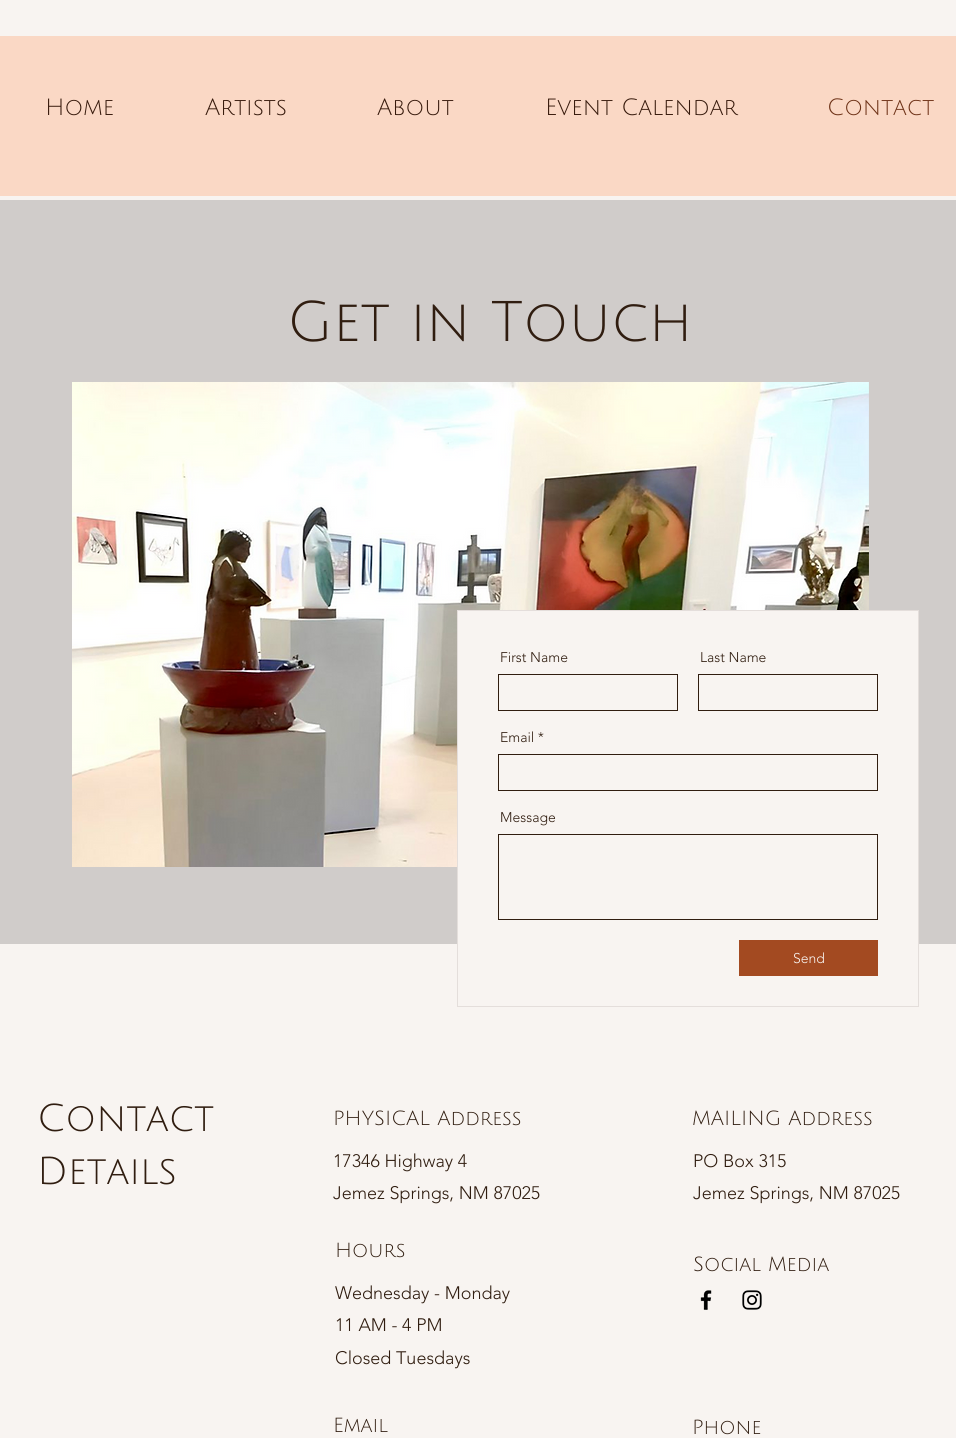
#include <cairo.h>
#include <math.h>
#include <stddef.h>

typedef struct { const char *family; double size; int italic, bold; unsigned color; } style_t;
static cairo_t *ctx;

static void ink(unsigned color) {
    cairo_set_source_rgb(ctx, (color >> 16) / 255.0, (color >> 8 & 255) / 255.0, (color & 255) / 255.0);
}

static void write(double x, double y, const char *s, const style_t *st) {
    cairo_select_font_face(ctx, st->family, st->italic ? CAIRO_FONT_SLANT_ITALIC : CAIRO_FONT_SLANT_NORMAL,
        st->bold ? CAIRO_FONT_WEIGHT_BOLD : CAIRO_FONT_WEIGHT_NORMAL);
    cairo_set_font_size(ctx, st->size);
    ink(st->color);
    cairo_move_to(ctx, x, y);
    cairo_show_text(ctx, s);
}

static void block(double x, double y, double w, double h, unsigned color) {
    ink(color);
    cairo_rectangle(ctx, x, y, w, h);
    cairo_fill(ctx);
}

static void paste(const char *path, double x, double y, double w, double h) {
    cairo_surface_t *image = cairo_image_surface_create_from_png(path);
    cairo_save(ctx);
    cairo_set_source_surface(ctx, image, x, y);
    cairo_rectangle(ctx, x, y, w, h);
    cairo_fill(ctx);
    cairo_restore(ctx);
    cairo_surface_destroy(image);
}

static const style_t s1 = {"Julius Sans One", 23, 0, 0, 0x36190b};
static const style_t s2 = {"Julius Sans One", 23, 0, 0, 0x6d3116};
static const style_t s3 = {"Julius Sans One", 56, 0, 0, 0x301d10};
static const style_t s4 = {"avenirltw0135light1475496 Light", 14, 0, 0, 0x301d10};
static const style_t s5 = {"avenirltw0135light1475496 Light", 14, 0, 0, 0xf8f4f1};
static const style_t s6 = {"Julius Sans One", 38, 0, 0, 0x301d10};
static const style_t s7 = {"Julius Sans One", 20, 0, 0, 0x301d10};
static const style_t s8 = {"avenirltw0135light1475496 Light", 18, 0, 0, 0x301d10};

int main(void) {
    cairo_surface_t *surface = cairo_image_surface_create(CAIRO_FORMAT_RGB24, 956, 1438);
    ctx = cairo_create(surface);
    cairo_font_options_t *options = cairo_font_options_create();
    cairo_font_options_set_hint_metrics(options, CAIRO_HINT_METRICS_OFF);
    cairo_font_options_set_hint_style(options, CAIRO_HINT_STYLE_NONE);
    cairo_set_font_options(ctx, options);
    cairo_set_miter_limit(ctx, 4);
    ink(0xf8f4f1);
    cairo_paint(ctx);
    block(0, 36, 956, 160, 0xfad8c5);
    write(45, 115, "Home", &s1);
    write(205, 115, "Artists", &s1);
    write(377, 115, "About", &s1);
    write(545, 115, "Event Calendar", &s1);
    write(827, 115, "Contact", &s2);
    block(0, 200, 956, 744, 0xd0ccca);
    write(287, 341, "Get in Touch", &s3);
    paste("pic1.png", 72, 382, 797, 485);
    block(458, 611, 460, 333, 0xf8f4f1);
    cairo_rectangle(ctx, 457.5, 610.5, 461, 396);
    ink(0xe4dedb);
    cairo_set_line_width(ctx, 1);
    cairo_stroke(ctx);
    write(500, 662, "First Name", &s4);
    cairo_rectangle(ctx, 498.5, 674.5, 179, 36);
    cairo_stroke(ctx);
    write(700, 662, "Last Name", &s4);
    cairo_rectangle(ctx, 698.5, 674.5, 179, 36);
    cairo_stroke(ctx);
    write(500, 742, "Email *", &s4);
    cairo_rectangle(ctx, 498.5, 754.5, 379, 36);
    cairo_stroke(ctx);
    write(500, 822, "Message", &s4);
    cairo_rectangle(ctx, 498.5, 834.5, 379, 85);
    cairo_stroke(ctx);
    block(739, 940, 139, 36, 0xa34a21);
    write(793, 963, "Send", &s5);
    write(37, 1131, "Contact", &s6);
    write(37, 1184, "Details", &s6);
    write(333, 1125, "PHYSICAL Address", &s7);
    write(692, 1125, "MAILING Address", &s7);
    write(333, 1167, "17346 Highway 4", &s8);
    write(333, 1199, "Jemez Springs, NM 87025", &s8);
    write(693, 1167, "PO Box 315", &s8);
    write(693, 1199, "Jemez Springs, NM 87025", &s8);
    write(335, 1257, "Hours", &s7);
    write(693, 1271, "Social Media", &s7);
    write(335, 1299, "Wednesday - Monday", &s8);
    write(335, 1331, "11 AM - 4 PM", &s8);
    write(335, 1364, "Closed Tuesdays", &s8);
    paste("pic2.png", 700, 1290, 12, 20);
    paste("pic3.png", 742, 1290, 20, 20);
    write(333, 1432, "Email", &s7);
    write(692, 1434, "Phone", &s7);
    cairo_surface_write_to_png(surface, "screenshot.png");
    cairo_font_options_destroy(options);
    cairo_destroy(ctx);
    cairo_surface_destroy(surface);
    return 0;
}
